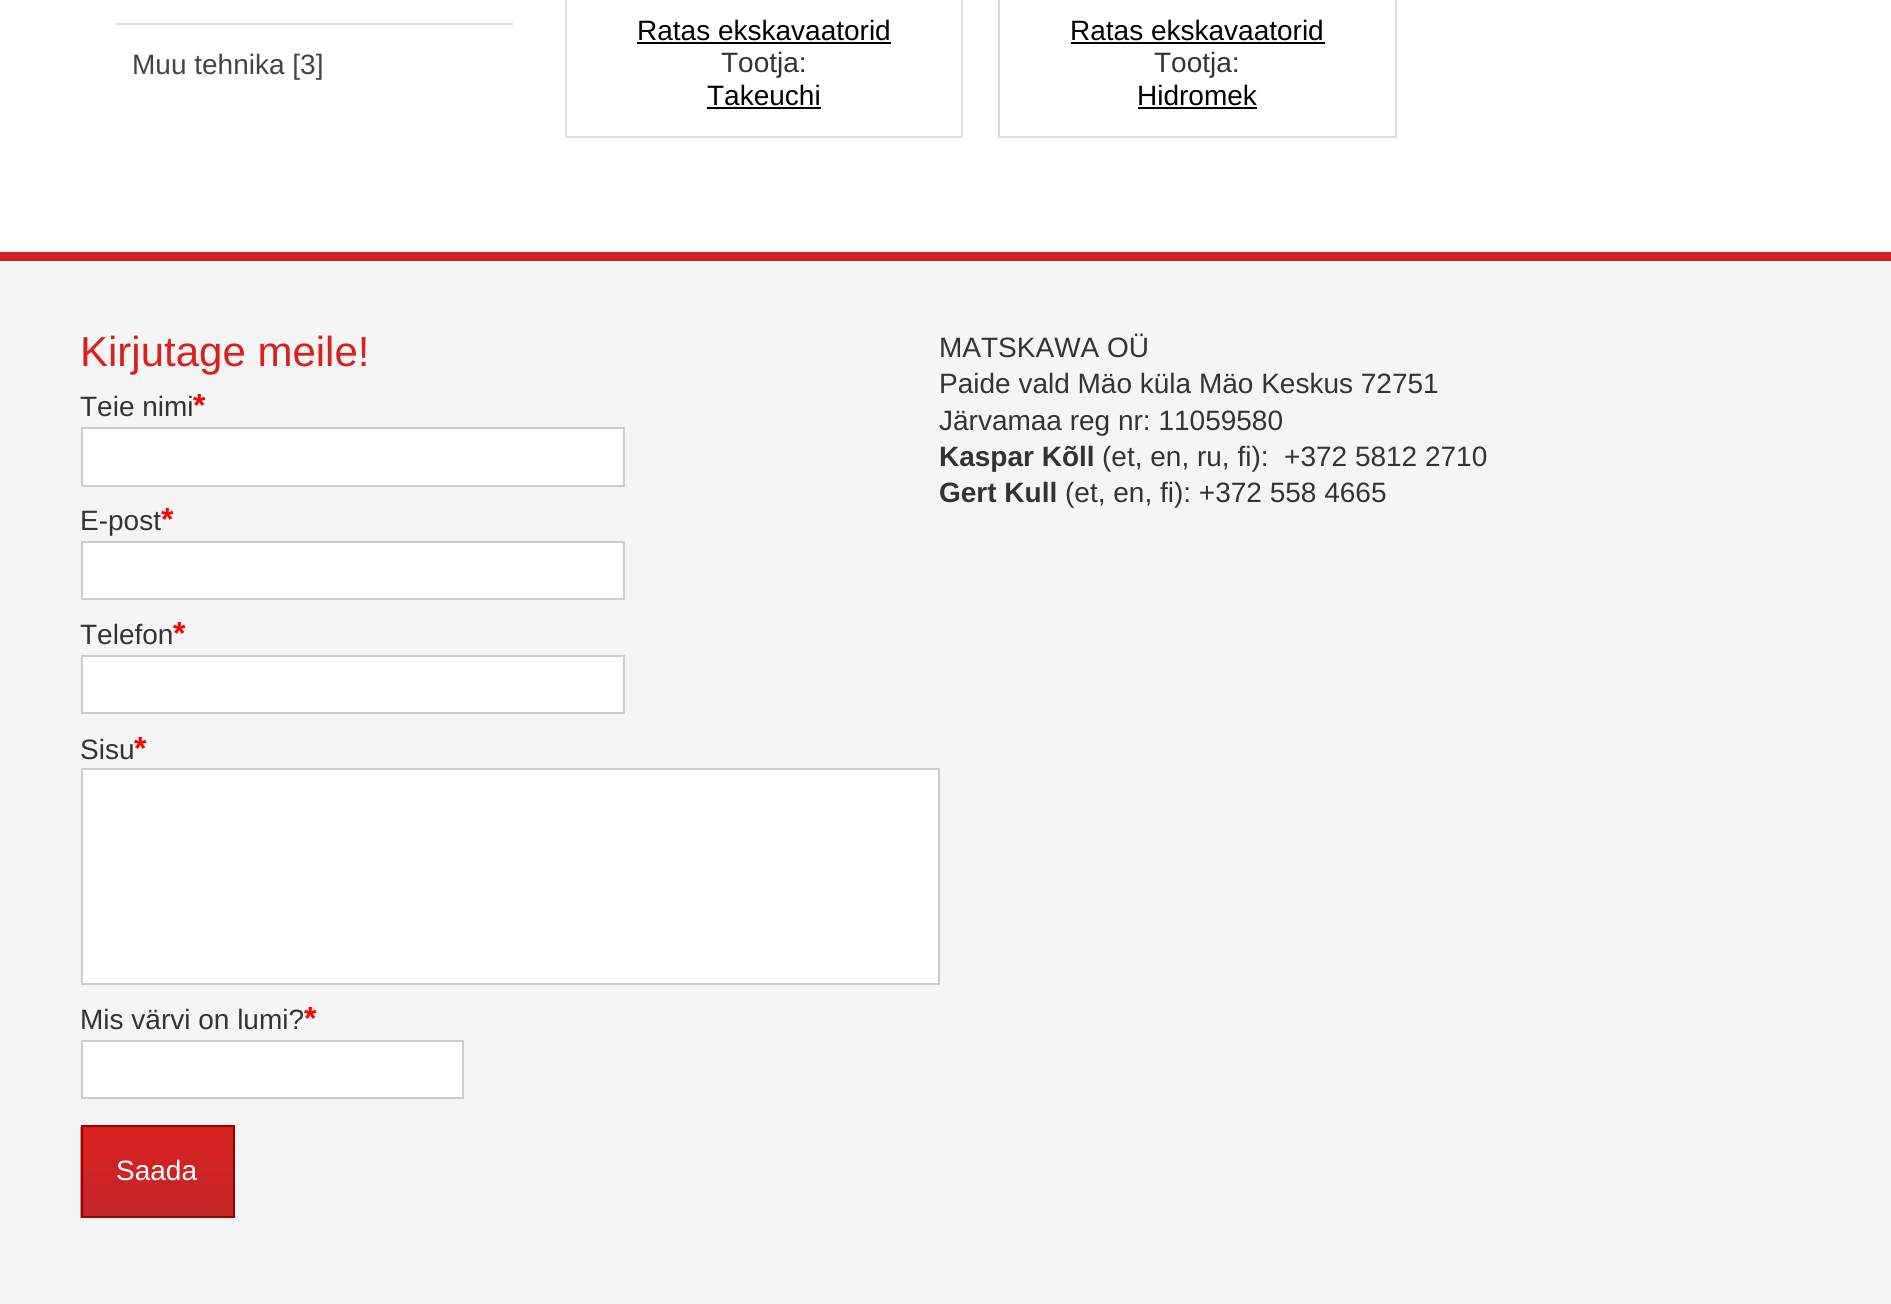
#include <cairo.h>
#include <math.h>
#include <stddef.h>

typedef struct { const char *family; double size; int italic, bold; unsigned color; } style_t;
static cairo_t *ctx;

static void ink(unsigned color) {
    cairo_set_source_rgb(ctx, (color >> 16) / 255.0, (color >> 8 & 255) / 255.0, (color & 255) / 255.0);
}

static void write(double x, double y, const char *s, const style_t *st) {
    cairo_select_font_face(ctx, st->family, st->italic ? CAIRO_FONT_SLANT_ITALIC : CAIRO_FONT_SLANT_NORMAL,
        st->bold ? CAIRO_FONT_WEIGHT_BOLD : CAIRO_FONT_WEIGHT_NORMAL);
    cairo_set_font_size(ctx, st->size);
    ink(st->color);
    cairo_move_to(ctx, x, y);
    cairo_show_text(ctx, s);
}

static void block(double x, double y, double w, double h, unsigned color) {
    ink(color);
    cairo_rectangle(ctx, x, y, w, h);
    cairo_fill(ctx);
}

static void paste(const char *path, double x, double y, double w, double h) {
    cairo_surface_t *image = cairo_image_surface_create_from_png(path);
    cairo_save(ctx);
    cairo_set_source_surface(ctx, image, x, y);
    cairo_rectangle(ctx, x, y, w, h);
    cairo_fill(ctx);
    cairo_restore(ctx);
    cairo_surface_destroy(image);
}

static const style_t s1 = {"Liberation Sans", 28, 0, 0, 0x444444};
static const style_t s2 = {"Liberation Sans", 28, 0, 0, 0x000000};
static const style_t s3 = {"Liberation Sans", 28, 0, 0, 0x333333};
static const style_t s4 = {"Liberation Sans", 42, 0, 0, 0xd9201e};
static const style_t s5 = {"Liberation Sans", 32, 0, 1, 0xff0000};
static const style_t s6 = {"Liberation Sans", 28, 0, 0, 0xffffff};
static const style_t s7 = {"Liberation Sans", 28, 0, 1, 0x333333};

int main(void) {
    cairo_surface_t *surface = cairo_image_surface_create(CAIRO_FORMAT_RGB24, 1891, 1304);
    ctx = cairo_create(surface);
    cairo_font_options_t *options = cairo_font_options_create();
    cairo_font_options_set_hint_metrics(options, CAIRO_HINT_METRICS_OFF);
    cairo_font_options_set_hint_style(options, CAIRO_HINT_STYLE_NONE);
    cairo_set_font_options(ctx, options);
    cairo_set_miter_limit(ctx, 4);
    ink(0xffffff);
    cairo_paint(ctx);
    block(116, 23, 397, 2, 0xdddddd);
    write(132, 74, "Muu tehnika [3]", &s1);
    cairo_rectangle(ctx, 566, -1, 396, 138);
    ink(0xdddddd);
    cairo_stroke(ctx);
    write(637, 40, "Ratas ekskavaatorid", &s2);
    block(637, 42, 254, 2, 0x000000);
    write(721, 72, "Tootja:", &s3);
    write(707, 105, "Takeuchi", &s2);
    block(707, 107, 114, 2, 0x000000);
    cairo_rectangle(ctx, 999, -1, 397, 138);
    ink(0xdddddd);
    cairo_stroke(ctx);
    write(1070, 40, "Ratas ekskavaatorid", &s2);
    block(1071, 42, 254, 2, 0x000000);
    write(1154, 72, "Tootja:", &s3);
    write(1137, 105, "Hidromek", &s2);
    block(1138, 107, 119, 2, 0x000000);
    block(0, 261, 1891, 1043, 0xf5f5f5);
    block(0, 252, 1891, 9, 0xd9201e);
    write(80, 366, "Kirjutage meile!", &s4);
    write(80, 416, "Teie nimi", &s3);
    write(193, 416, "*", &s5);
    ink(0xffffff);
    cairo_rectangle(ctx, 82, 428, 542, 58);
    cairo_fill_preserve(ctx);
    ink(0xcccccc);
    cairo_stroke(ctx);
    write(80, 530, "E-post", &s3);
    write(161, 530, "*", &s5);
    ink(0xffffff);
    cairo_rectangle(ctx, 82, 542, 542, 57);
    cairo_fill_preserve(ctx);
    ink(0xcccccc);
    cairo_stroke(ctx);
    write(80, 644, "Telefon", &s3);
    write(173, 644, "*", &s5);
    ink(0xffffff);
    cairo_rectangle(ctx, 82, 656, 542, 57);
    cairo_fill_preserve(ctx);
    ink(0xcccccc);
    cairo_stroke(ctx);
    write(80, 759, "Sisu", &s3);
    write(134, 759, "*", &s5);
    ink(0xffffff);
    cairo_rectangle(ctx, 82, 769, 857, 215);
    cairo_fill_preserve(ctx);
    ink(0xcccccc);
    cairo_stroke(ctx);
    write(80, 1029, "Mis värvi on lumi?", &s3);
    write(304, 1029, "*", &s5);
    ink(0xffffff);
    cairo_rectangle(ctx, 82, 1041, 381, 57);
    cairo_fill_preserve(ctx);
    ink(0xcccccc);
    cairo_stroke(ctx);
    paste("pic1.png", 80, 1127, 153, 91);
    cairo_rectangle(ctx, 82, 1126, 152, 91);
    ink(0x990000);
    cairo_stroke(ctx);
    write(116, 1180, "Saada", &s6);
    write(939, 357, "MATSKAWA OÜ", &s3);
    write(939, 393, "Paide vald Mäo küla Mäo Keskus 72751", &s3);
    write(939, 430, "Järvamaa reg nr: 11059580", &s3);
    write(939, 466, "Kaspar Kõll", &s7);
    write(1102, 466, "(et, en, ru, fi):  +372 5812 2710", &s3);
    write(939, 502, "Gert Kull", &s7);
    write(1065, 502, "(et, en, fi): +372 558 4665", &s3);
    cairo_surface_write_to_png(surface, "screenshot.png");
    cairo_font_options_destroy(options);
    cairo_destroy(ctx);
    cairo_surface_destroy(surface);
    return 0;
}
